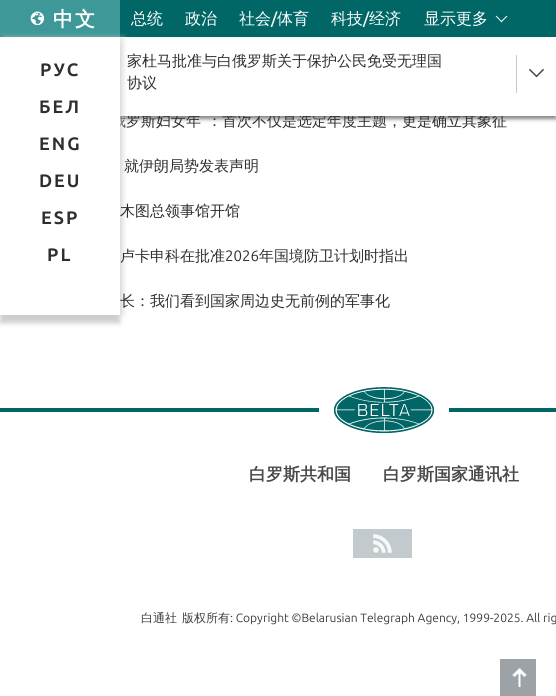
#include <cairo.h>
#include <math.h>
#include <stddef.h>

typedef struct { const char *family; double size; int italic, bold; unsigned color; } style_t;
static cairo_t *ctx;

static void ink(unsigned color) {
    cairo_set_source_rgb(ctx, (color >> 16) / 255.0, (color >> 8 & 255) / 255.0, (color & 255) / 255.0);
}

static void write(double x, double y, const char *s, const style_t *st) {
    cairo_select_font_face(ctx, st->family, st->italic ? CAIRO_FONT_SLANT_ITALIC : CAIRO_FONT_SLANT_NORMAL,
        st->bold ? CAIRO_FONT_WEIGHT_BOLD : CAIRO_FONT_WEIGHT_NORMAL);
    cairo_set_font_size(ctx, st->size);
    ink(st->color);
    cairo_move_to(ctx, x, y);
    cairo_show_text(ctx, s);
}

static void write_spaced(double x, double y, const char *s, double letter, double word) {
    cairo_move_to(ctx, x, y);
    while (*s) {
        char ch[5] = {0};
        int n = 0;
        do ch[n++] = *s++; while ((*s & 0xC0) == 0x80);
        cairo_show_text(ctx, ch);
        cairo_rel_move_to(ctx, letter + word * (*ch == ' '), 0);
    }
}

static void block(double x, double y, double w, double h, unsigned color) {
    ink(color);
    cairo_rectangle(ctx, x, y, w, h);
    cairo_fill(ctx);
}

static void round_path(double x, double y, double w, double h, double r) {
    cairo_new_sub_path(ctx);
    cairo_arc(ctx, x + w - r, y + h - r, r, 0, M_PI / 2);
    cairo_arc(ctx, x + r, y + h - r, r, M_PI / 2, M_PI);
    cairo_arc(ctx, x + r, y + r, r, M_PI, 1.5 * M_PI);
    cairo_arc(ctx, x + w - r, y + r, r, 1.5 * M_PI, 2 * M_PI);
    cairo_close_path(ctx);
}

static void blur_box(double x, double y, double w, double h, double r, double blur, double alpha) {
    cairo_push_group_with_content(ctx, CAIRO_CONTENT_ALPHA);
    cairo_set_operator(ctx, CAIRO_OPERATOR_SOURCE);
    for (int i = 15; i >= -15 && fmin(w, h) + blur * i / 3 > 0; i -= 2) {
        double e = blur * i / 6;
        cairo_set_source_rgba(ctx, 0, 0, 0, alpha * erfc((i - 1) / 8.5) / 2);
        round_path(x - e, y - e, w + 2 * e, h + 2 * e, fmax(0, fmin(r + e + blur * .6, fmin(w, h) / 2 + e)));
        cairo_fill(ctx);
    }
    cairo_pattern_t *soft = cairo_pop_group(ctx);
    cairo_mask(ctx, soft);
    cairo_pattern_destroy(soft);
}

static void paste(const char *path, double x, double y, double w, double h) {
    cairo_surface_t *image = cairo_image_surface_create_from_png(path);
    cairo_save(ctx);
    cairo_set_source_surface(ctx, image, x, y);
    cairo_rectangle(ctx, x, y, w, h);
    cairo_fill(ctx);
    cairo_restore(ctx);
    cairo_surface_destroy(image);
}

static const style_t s1 = {"WenQuanYi Zen Hei Medium", 15, 0, 0, 0x2e2e2e};
static const style_t s2 = {"WenQuanYi Zen Hei Medium", 16, 0, 0, 0xffffff};
static const style_t s3 = {"Ubuntu Medium", 16, 0, 0, 0xffffff};
static const style_t s4 = {"Ubuntu", 15, 0, 0, 0x2e2e2e};
static const style_t s5 = {"WenQuanYi Zen Hei", 17, 0, 1, 0x494949};
static const style_t s6 = {"WenQuanYi Zen Hei Medium", 12, 0, 0, 0x3c3c3c};
static const style_t s7 = {"Ubuntu", 12, 0, 0, 0x3c3c3c};

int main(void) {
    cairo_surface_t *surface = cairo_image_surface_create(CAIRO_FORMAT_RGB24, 556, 696);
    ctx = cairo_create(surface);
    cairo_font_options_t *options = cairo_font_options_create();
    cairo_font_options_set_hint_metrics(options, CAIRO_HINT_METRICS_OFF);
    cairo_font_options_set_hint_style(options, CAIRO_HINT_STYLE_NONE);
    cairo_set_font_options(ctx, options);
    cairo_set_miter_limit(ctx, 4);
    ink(0xffffff);
    cairo_paint(ctx);
    ink(0x646464);
    blur_box(0, 40, 556, 79, 0, 2, 0.8);
    block(120, 0, 436, 37, 0x006666);
    block(0, 0, 120, 37, 0x3f9898);
    paste("pic1.png", 30, 11, 14, 14);
    cairo_select_font_face(ctx, "WenQuanYi Zen Hei", CAIRO_FONT_SLANT_NORMAL, CAIRO_FONT_WEIGHT_BOLD);
    cairo_set_font_size(ctx, 20);
    ink(0xffffff);
    write_spaced(53, 26, "中文", 2, 0);
    write(111, 126, "俄罗斯妇女年", &s1);
    write(207, 126, "：首次不仅是选定年度主题，更是确立其象征", &s1);
    block(120, 37, 436, 79, 0xffffff);
    ink(0x989898);
    blur_box(0, 45, 120, 278, 0, 2.5, 0.5);
    ink(0xd4d4d4);
    blur_box(4, 37, 120, 278, 0, 2.5, 0.5);
    block(0, 37, 120, 278, 0xffffff);
    cairo_select_font_face(ctx, "Ubuntu", CAIRO_FONT_SLANT_NORMAL, CAIRO_FONT_WEIGHT_BOLD);
    cairo_set_font_size(ctx, 18);
    ink(0x2e2e2e);
    write_spaced(40, 76, "РУС", 2, 0);
    write_spaced(39, 113, "БЕЛ", 2, 0);
    write_spaced(39, 150, "ENG", 2, 0);
    write_spaced(39, 187, "DEU", 2, 0);
    write_spaced(41, 224, "ESP", 2, 0);
    write_spaced(47, 261, "PL", 2, 0);
    write(131, 24, "总统", &s2);
    write(185, 24, "政治", &s2);
    write(239, 24, "社会", &s2);
    write(271, 24, "/", &s3);
    write(277, 24, "体育", &s2);
    write(331, 24, "科技", &s2);
    write(363, 24, "/", &s3);
    write(369, 24, "经济", &s2);
    write(424, 24, "显示更多", &s2);
    paste("pic2.png", 495, 15, 13, 8);
    write(127, 66, "家杜马批准与白俄罗斯关于保护公民免受无理国", &s1);
    write(127, 88, "协议", &s1);
    paste("pic3.png", 529, 69, 15, 9);
    block(516, 55, 1, 38, 0xc8c8c8);
    write(124, 171, "就伊朗局势发表声明", &s1);
    write(120, 216, "木图总领事馆开馆", &s1);
    write(120, 261, "卢卡申科在批准", &s1);
    write(225, 261, "2026", &s4);
    write(259, 261, "年国境防卫计划时指出", &s1);
    write(120, 306, "长：我们看到国家周边史无前例的军事化", &s1);
    block(0, 408, 556, 4, 0x006666);
    block(319, 408, 130, 4, 0xffffff);
    paste("pic4.png", 334, 387, 100, 46);
    write(249, 480, "白罗斯共和国", &s5);
    write(383, 480, "白罗斯国家通讯社", &s5);
    paste("pic5.png", 353, 529, 59, 29);
    write(141, 622, "白通社", &s6);
    write(182, 622, "版权所有", &s6);
    write(230, 622, ": Copyright ©Belarusian Telegraph Agency, 1999-2025. All rig", &s7);
    paste("pic6.png", 500, 659, 36, 37);
    cairo_surface_write_to_png(surface, "screenshot.png");
    cairo_font_options_destroy(options);
    cairo_destroy(ctx);
    cairo_surface_destroy(surface);
    return 0;
}
